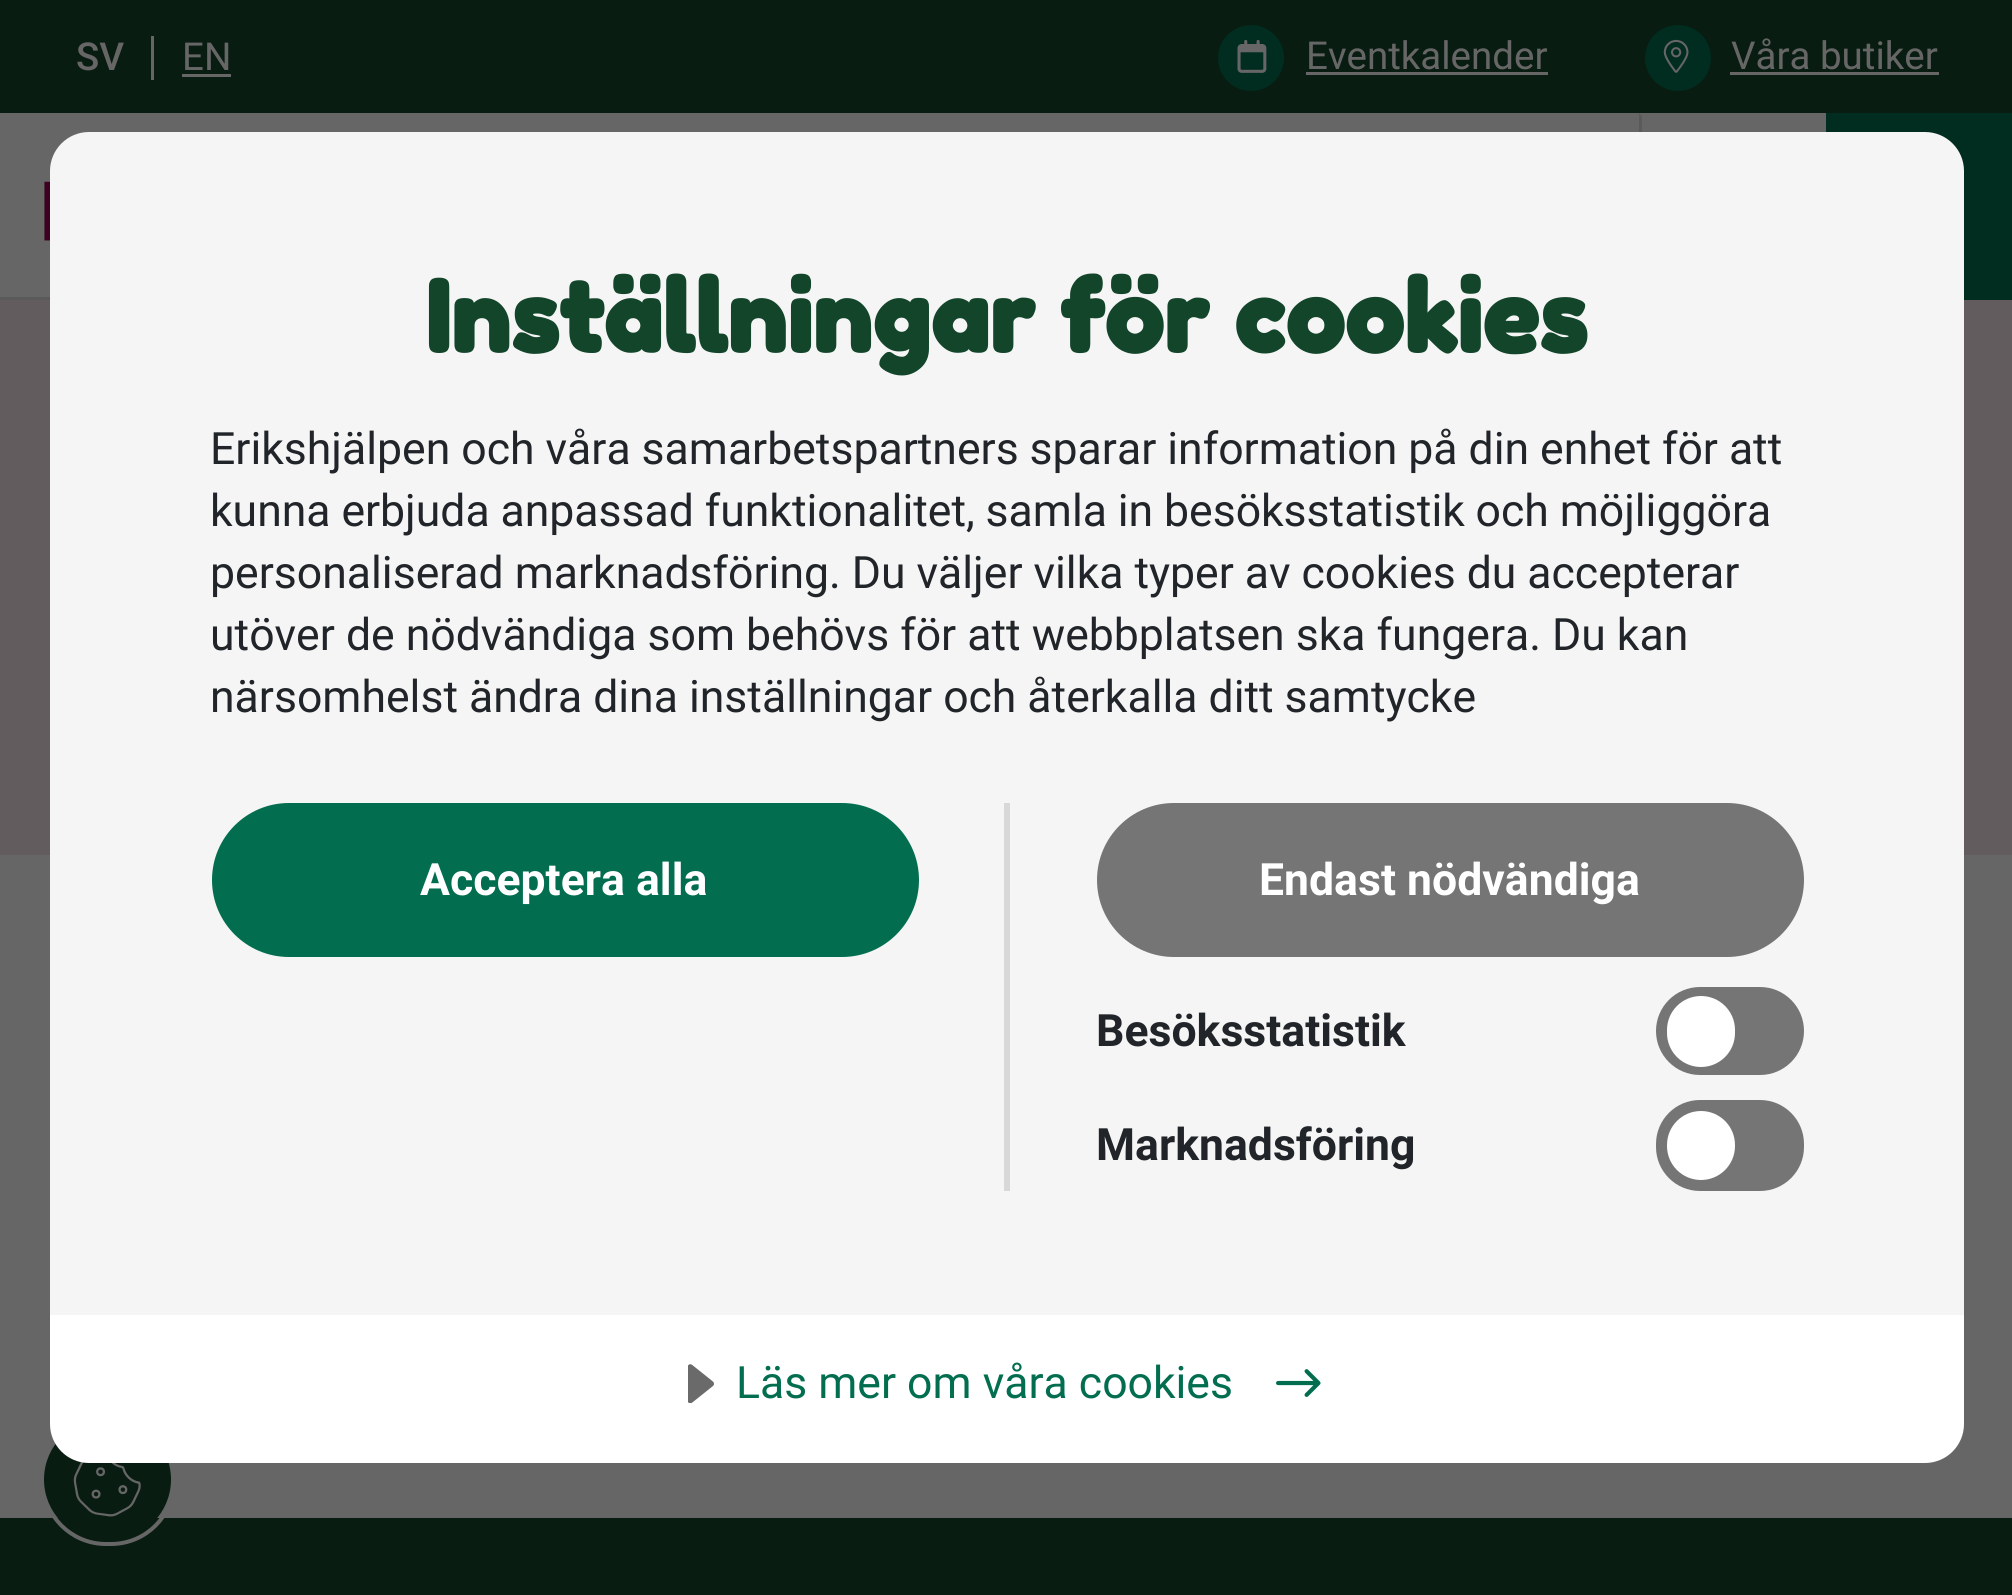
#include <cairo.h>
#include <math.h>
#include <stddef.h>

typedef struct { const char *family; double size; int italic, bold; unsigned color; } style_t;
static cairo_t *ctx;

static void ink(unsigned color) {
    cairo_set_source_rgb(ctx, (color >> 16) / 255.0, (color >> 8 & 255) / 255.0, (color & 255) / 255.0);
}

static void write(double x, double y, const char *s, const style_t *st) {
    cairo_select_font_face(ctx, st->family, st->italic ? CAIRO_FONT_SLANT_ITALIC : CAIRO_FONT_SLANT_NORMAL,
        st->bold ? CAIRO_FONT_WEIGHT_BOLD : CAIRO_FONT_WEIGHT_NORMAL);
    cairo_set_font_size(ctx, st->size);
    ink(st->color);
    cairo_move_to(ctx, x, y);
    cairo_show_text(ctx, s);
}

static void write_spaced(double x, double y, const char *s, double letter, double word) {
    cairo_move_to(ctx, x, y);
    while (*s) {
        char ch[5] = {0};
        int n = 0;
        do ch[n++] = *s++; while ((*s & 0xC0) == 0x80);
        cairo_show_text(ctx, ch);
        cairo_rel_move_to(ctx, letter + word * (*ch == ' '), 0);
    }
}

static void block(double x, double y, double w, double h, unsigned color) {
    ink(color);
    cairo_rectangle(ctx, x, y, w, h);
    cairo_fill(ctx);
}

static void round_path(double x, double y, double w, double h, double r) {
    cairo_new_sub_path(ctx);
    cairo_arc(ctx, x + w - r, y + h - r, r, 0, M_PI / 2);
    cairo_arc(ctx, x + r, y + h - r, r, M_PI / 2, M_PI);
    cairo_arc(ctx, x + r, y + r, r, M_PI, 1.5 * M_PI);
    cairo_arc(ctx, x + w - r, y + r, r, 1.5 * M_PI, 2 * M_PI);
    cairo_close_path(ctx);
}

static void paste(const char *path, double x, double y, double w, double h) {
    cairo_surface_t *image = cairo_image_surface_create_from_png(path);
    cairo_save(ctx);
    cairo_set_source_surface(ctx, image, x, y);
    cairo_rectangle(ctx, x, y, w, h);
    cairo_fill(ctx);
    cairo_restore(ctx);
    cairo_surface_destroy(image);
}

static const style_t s1 = {"Roboto Medium", 38.5, 0, 0, 0x666666};
static const style_t s2 = {"Roboto", 38.5, 0, 0, 0x666666};
static const style_t s3 = {"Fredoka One", 99, 0, 1, 0x13452b};
static const style_t s4 = {"Roboto", 44.55, 0, 0, 0x212529};
static const style_t s5 = {"Roboto", 44.55, 0, 1, 0xffffff};
static const style_t s6 = {"Roboto", 44.55, 0, 1, 0x212529};
static const style_t s7 = {"Roboto", 44.55, 0, 0, 0x026e4f};

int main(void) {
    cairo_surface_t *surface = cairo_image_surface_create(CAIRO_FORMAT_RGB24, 2012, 1595);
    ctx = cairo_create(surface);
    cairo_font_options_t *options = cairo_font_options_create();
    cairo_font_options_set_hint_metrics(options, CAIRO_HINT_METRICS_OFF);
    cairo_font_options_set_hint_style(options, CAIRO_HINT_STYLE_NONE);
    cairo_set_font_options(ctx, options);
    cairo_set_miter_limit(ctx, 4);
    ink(0x666666);
    cairo_paint(ctx);
    block(0, 0, 2012, 113, 0x081c11);
    write(76, 70, "SV", &s1);
    block(151, 36, 3, 44, 0x666666);
    write(182, 70, "EN", &s2);
    block(182, 74, 49, 3, 0x666666);
    ink(0x012c20);
    cairo_new_path(ctx);
    cairo_arc(ctx, 1251, 58, 33, 0, 2 * M_PI);
    cairo_fill(ctx);
    paste("pic1.png", 1237, 39, 30, 34);
    write(1306, 69, "Eventkalender", &s2);
    block(1306, 72, 242, 3, 0x666666);
    ink(0x012c20);
    cairo_new_path(ctx);
    cairo_arc(ctx, 1678, 58, 33, 0, 2 * M_PI);
    cairo_fill(ctx);
    paste("pic2.png", 1663, 39, 26, 34);
    write(1731, 69, "Våra butiker", &s2);
    block(1730, 72, 209, 3, 0x666666);
    block(0, 297, 50, 3, 0x5a5a5a);
    paste("pic3.png", 44, 181, 6, 60);
    cairo_new_path(ctx);
    cairo_move_to(ctx, 1639, 300);
    cairo_line_to(ctx, 1639, 113);
    cairo_line_to(ctx, 1642, 116);
    cairo_line_to(ctx, 1642, 297);
    cairo_close_path(ctx);
    cairo_fill(ctx);
    block(1826, 113, 186, 187, 0x012c20);
    block(0, 300, 2012, 555, 0x625c5f);
    ink(0xf5f5f5);
    cairo_new_path(ctx);
    cairo_move_to(ctx, 89, 132);
    cairo_line_to(ctx, 1925, 132);
    cairo_curve_to(ctx, 1946.5, 132, 1964, 149.5, 1964, 171);
    cairo_line_to(ctx, 1964, 1315);
    cairo_line_to(ctx, 50, 1315);
    cairo_line_to(ctx, 50, 171);
    cairo_curve_to(ctx, 50, 149.5, 67.5, 132, 89, 132);
    cairo_close_path(ctx);
    cairo_fill(ctx);
    write(425, 353, "Inställningar för cookies", &s3);
    cairo_select_font_face(ctx, "Roboto", CAIRO_FONT_SLANT_NORMAL, CAIRO_FONT_WEIGHT_NORMAL);
    cairo_set_font_size(ctx, 44.55);
    ink(0x212529);
    write_spaced(210, 464, "Erikshjälpen och våra samarbetspartners sparar information på din enhet för att", 0, -0.1);
    write_spaced(210, 526, "kunna erbjuda anpassad funktionalitet, samla in besöksstatistik och möjliggöra", 0, -0.25);
    write_spaced(210, 588, "personaliserad marknadsföring. Du väljer vilka typer av cookies du accepterar", 0, -0.1);
    write(210, 650, "utöver de nödvändiga som behövs för att webbplatsen ska fungera. Du kan", &s4);
    write_spaced(210, 712, "närsomhelst ändra dina inställningar och återkalla ditt samtycke", 0, -0.1);
    block(1004, 803, 6, 388, 0xd8d8d8);
    ink(0x026e4f);
    round_path(212, 803, 707, 154, 77);
    cairo_fill(ctx);
    write(420, 895, "Acceptera alla", &s5);
    ink(0x757575);
    round_path(1097, 803, 707, 154, 77);
    cairo_fill(ctx);
    write(1259, 895, "Endast nödvändiga", &s5);
    write(1096, 1046, "Besöksstatistik", &s6);
    ink(0x757575);
    round_path(1656, 987, 148, 88, 44);
    cairo_fill(ctx);
    ink(0xffffff);
    round_path(1667, 996, 68, 71, 34);
    cairo_fill(ctx);
    write(1096, 1160, "Marknadsföring", &s6);
    ink(0x757575);
    round_path(1656, 1100, 148, 91, 44);
    cairo_fill(ctx);
    ink(0xffffff);
    round_path(1667, 1111, 68, 69, 34);
    cairo_fill(ctx);
    block(0, 1518, 2012, 77, 0x081c11);
    round_path(43, 1418, 131, 126, 63);
    ink(0x666666);
    cairo_set_line_width(ctx, 4);
    cairo_stroke(ctx);
    ink(0x081c11);
    round_path(44, 1419, 127, 121, 60.5);
    cairo_fill(ctx);
    paste("pic6.png", 73, 1462, 68, 55);
    ink(0xffffff);
    cairo_new_path(ctx);
    cairo_move_to(ctx, 50, 1315);
    cairo_line_to(ctx, 1964, 1315);
    cairo_line_to(ctx, 1964, 1424);
    cairo_curve_to(ctx, 1964, 1445.5, 1946.5, 1463, 1925, 1463);
    cairo_line_to(ctx, 89, 1463);
    cairo_curve_to(ctx, 67.5, 1463, 50, 1445.5, 50, 1424);
    cairo_close_path(ctx);
    cairo_fill(ctx);
    paste("pic4.png", 688, 1364, 26, 39);
    write(736, 1398, "Läs mer om våra cookies", &s7);
    paste("pic5.png", 1276, 1369, 45, 28);
    cairo_surface_write_to_png(surface, "screenshot.png");
    cairo_font_options_destroy(options);
    cairo_destroy(ctx);
    cairo_surface_destroy(surface);
    return 0;
}
